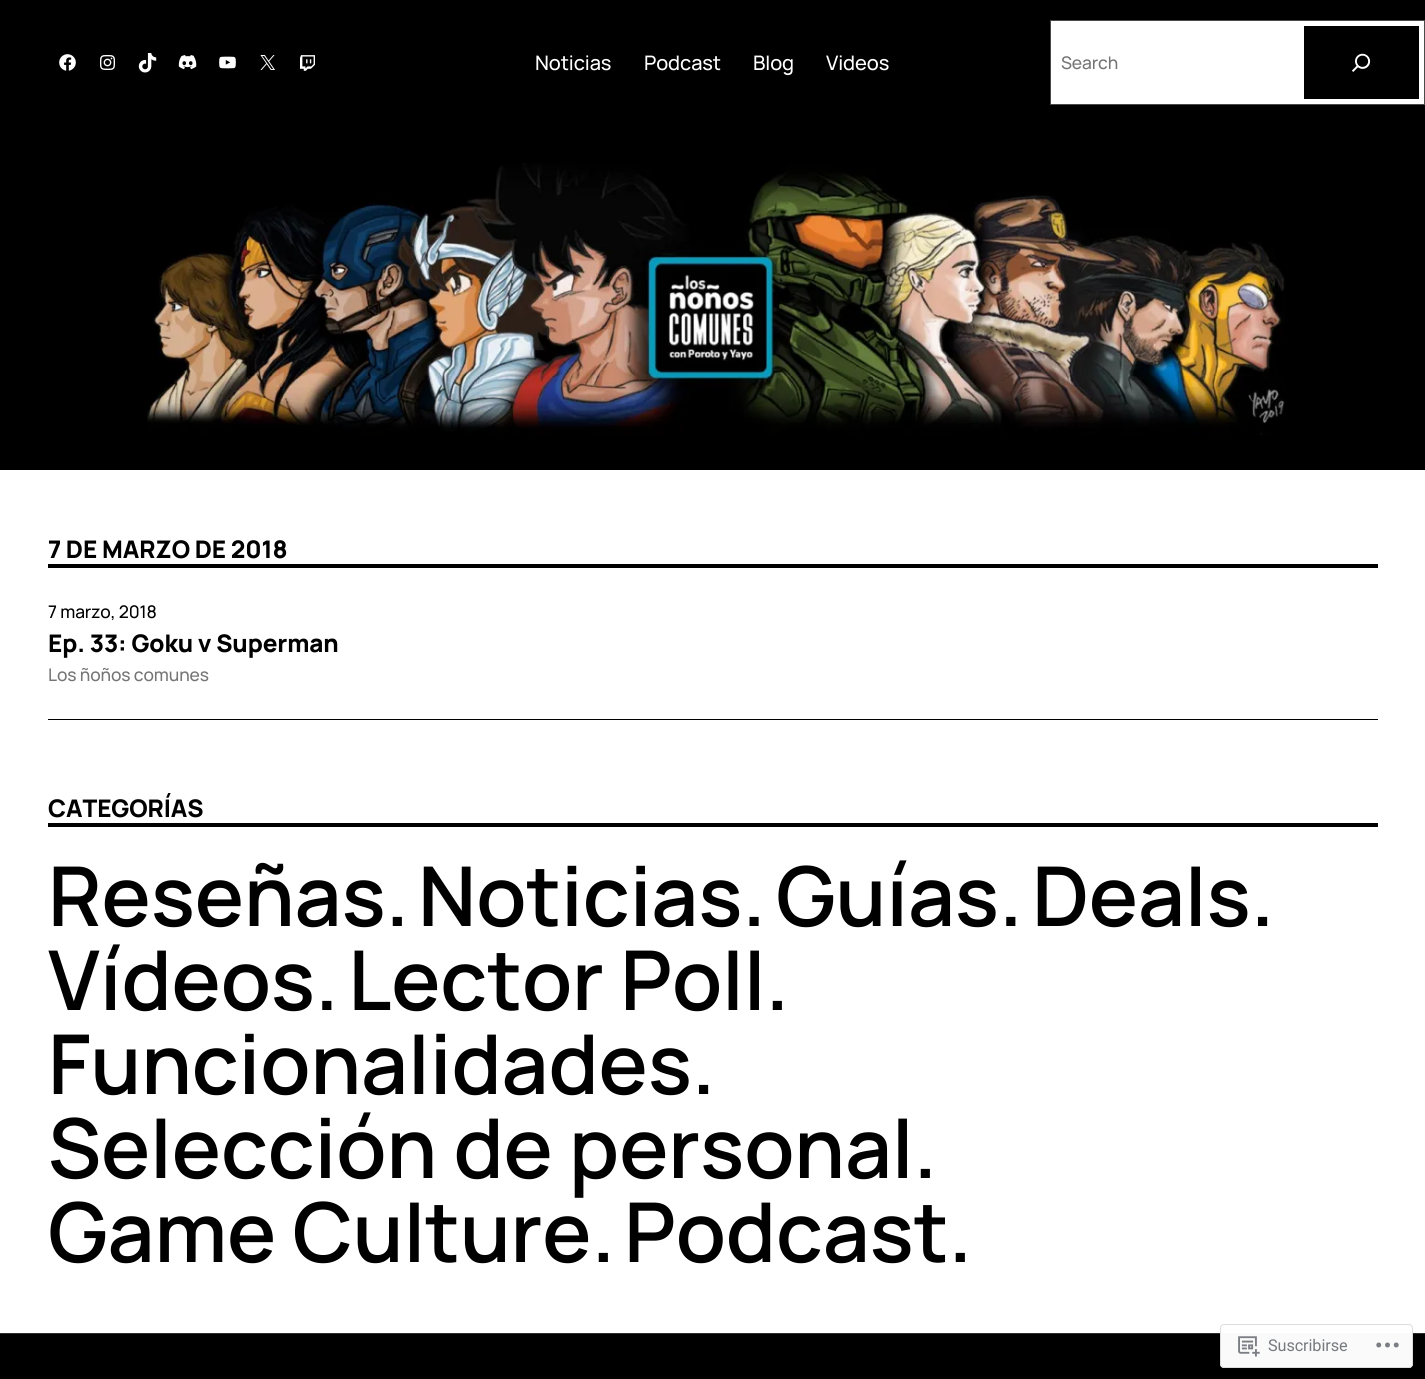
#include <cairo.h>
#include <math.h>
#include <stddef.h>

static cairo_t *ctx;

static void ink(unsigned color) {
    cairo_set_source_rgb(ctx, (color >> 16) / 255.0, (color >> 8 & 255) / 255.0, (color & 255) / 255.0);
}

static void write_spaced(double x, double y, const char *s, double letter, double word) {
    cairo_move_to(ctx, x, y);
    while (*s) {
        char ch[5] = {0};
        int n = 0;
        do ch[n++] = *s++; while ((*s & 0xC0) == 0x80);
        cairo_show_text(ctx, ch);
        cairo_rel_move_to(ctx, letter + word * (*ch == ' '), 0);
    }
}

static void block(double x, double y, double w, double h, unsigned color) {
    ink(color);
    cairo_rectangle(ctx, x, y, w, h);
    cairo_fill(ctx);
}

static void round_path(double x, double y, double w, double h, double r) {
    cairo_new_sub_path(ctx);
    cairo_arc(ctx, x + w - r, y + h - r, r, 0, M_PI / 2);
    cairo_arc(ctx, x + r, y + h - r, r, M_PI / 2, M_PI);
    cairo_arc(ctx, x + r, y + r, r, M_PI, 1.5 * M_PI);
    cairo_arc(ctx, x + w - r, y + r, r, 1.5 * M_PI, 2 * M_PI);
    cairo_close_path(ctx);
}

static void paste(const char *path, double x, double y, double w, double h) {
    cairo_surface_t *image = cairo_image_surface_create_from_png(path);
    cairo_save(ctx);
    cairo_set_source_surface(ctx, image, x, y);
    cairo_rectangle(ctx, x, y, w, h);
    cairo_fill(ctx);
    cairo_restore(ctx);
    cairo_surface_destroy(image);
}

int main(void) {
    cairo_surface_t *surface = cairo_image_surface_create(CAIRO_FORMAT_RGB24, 1425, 1379);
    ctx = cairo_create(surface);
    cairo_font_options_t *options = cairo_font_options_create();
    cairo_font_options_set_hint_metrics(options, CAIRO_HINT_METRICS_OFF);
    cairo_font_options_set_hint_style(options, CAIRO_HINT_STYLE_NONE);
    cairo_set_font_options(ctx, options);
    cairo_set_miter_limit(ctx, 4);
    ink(0xffffff);
    cairo_paint(ctx);
    block(0, 0, 1425, 470, 0x000000);
    paste("pic1.png", 59, 54, 17, 17);
    paste("pic2.png", 100, 55, 15, 15);
    paste("pic3.png", 138, 53, 19, 20);
    paste("pic4.png", 178, 55, 19, 15);
    paste("pic5.png", 219, 56, 17, 13);
    paste("pic6.png", 260, 55, 15, 15);
    paste("pic7.png", 300, 55, 15, 16);
    cairo_select_font_face(ctx, "Manrope Medium", CAIRO_FONT_SLANT_NORMAL, CAIRO_FONT_WEIGHT_NORMAL);
    cairo_set_font_size(ctx, 20);
    ink(0xffffff);
    write_spaced(535, 70, "Noticias", -0.1, 0);
    write_spaced(644, 70, "Podcast", -0.1, 0);
    write_spaced(753, 70, "Blog", -0.1, 0);
    write_spaced(826, 70, "Videos", -0.1, 0);
    cairo_rectangle(ctx, 1050.5, 20.5, 374, 84);
    cairo_fill_preserve(ctx);
    ink(0x4a4a4a);
    cairo_set_line_width(ctx, 1);
    cairo_stroke(ctx);
    cairo_set_font_size(ctx, 17.4);
    ink(0x757575);
    write_spaced(1061, 69, "Search", -0.1, 0);
    block(1304, 26, 115, 73, 0x000000);
    paste("pic8.png", 1352, 53, 19, 19);
    paste("pic9.png", 147, 163, 1138, 272);
    block(48, 564, 1330, 4, 0x000000);
    cairo_select_font_face(ctx, "Manrope ExtraBold", CAIRO_FONT_SLANT_NORMAL, CAIRO_FONT_WEIGHT_NORMAL);
    cairo_set_font_size(ctx, 24.25);
    write_spaced(48, 558, "7 DE MARZO DE 2018", -0.1, 0);
    cairo_select_font_face(ctx, "Manrope Medium", CAIRO_FONT_SLANT_NORMAL, CAIRO_FONT_WEIGHT_NORMAL);
    cairo_set_font_size(ctx, 17.4);
    write_spaced(48, 618, "7 marzo, 2018", -0.1, 0);
    cairo_select_font_face(ctx, "Manrope ExtraBold", CAIRO_FONT_SLANT_NORMAL, CAIRO_FONT_WEIGHT_NORMAL);
    cairo_set_font_size(ctx, 24.25);
    write_spaced(48, 652, "Ep. 33: Goku v Superman", -0.1, 0);
    cairo_select_font_face(ctx, "Manrope Medium", CAIRO_FONT_SLANT_NORMAL, CAIRO_FONT_WEIGHT_NORMAL);
    cairo_set_font_size(ctx, 17.4);
    ink(0x757575);
    write_spaced(48, 681, "Los ñoños comunes", -0.1, 0);
    block(48, 719, 1330, 1, 0x000000);
    block(48, 823, 1330, 4, 0x000000);
    cairo_select_font_face(ctx, "Manrope ExtraBold", CAIRO_FONT_SLANT_NORMAL, CAIRO_FONT_WEIGHT_NORMAL);
    cairo_set_font_size(ctx, 24.25);
    write_spaced(48, 817, "CATEGORÍAS", -0.1, 0);
    cairo_select_font_face(ctx, "Manrope SemiBold", CAIRO_FONT_SLANT_NORMAL, CAIRO_FONT_WEIGHT_NORMAL);
    cairo_set_font_size(ctx, 82.5);
    write_spaced(48, 926, "Reseñas.", -0.1, 0);
    write_spaced(418, 926, "Noticias.", -0.1, 0);
    write_spaced(776, 926, "Guías.", -0.1, 0);
    write_spaced(1032, 926, "Deals.", -0.1, 0);
    write_spaced(48, 1010, "Vídeos.", -0.1, 0);
    write_spaced(348, 1010, "Lector Poll.", -0.1, 0);
    write_spaced(48, 1094, "Funcionalidades.", -0.1, 0);
    write_spaced(48, 1178, "Selección de personal.", -0.1, 0);
    write_spaced(48, 1262, "Game Culture.", -0.1, 0);
    write_spaced(624, 1262, "Podcast.", -0.1, 0);
    block(0, 1334, 1425, 45, 0x000000);
    block(0, 1333, 1425, 1, 0x2e2e2e);
    cairo_set_source_rgba(ctx, 1, 1, 1, 0.98);
    round_path(1220, 1324, 193, 44, 4);
    cairo_fill(ctx);
    round_path(1220.5, 1324.5, 192, 43, 3.5);
    cairo_set_source_rgba(ctx, 0.863, 0.863, 0.871, 0.98);
    cairo_stroke(ctx);
    paste("pic10.png", 1238, 1336, 22, 21);
    cairo_select_font_face(ctx, "Roboto", CAIRO_FONT_SLANT_NORMAL, CAIRO_FONT_WEIGHT_NORMAL);
    cairo_set_font_size(ctx, 16.25);
    ink(0x767a7f);
    write_spaced(1268, 1351, "Suscribirse", -0.1, 0);
    paste("pic11.png", 1376, 1342, 23, 6);
    cairo_surface_write_to_png(surface, "screenshot.png");
    cairo_font_options_destroy(options);
    cairo_destroy(ctx);
    cairo_surface_destroy(surface);
    return 0;
}
